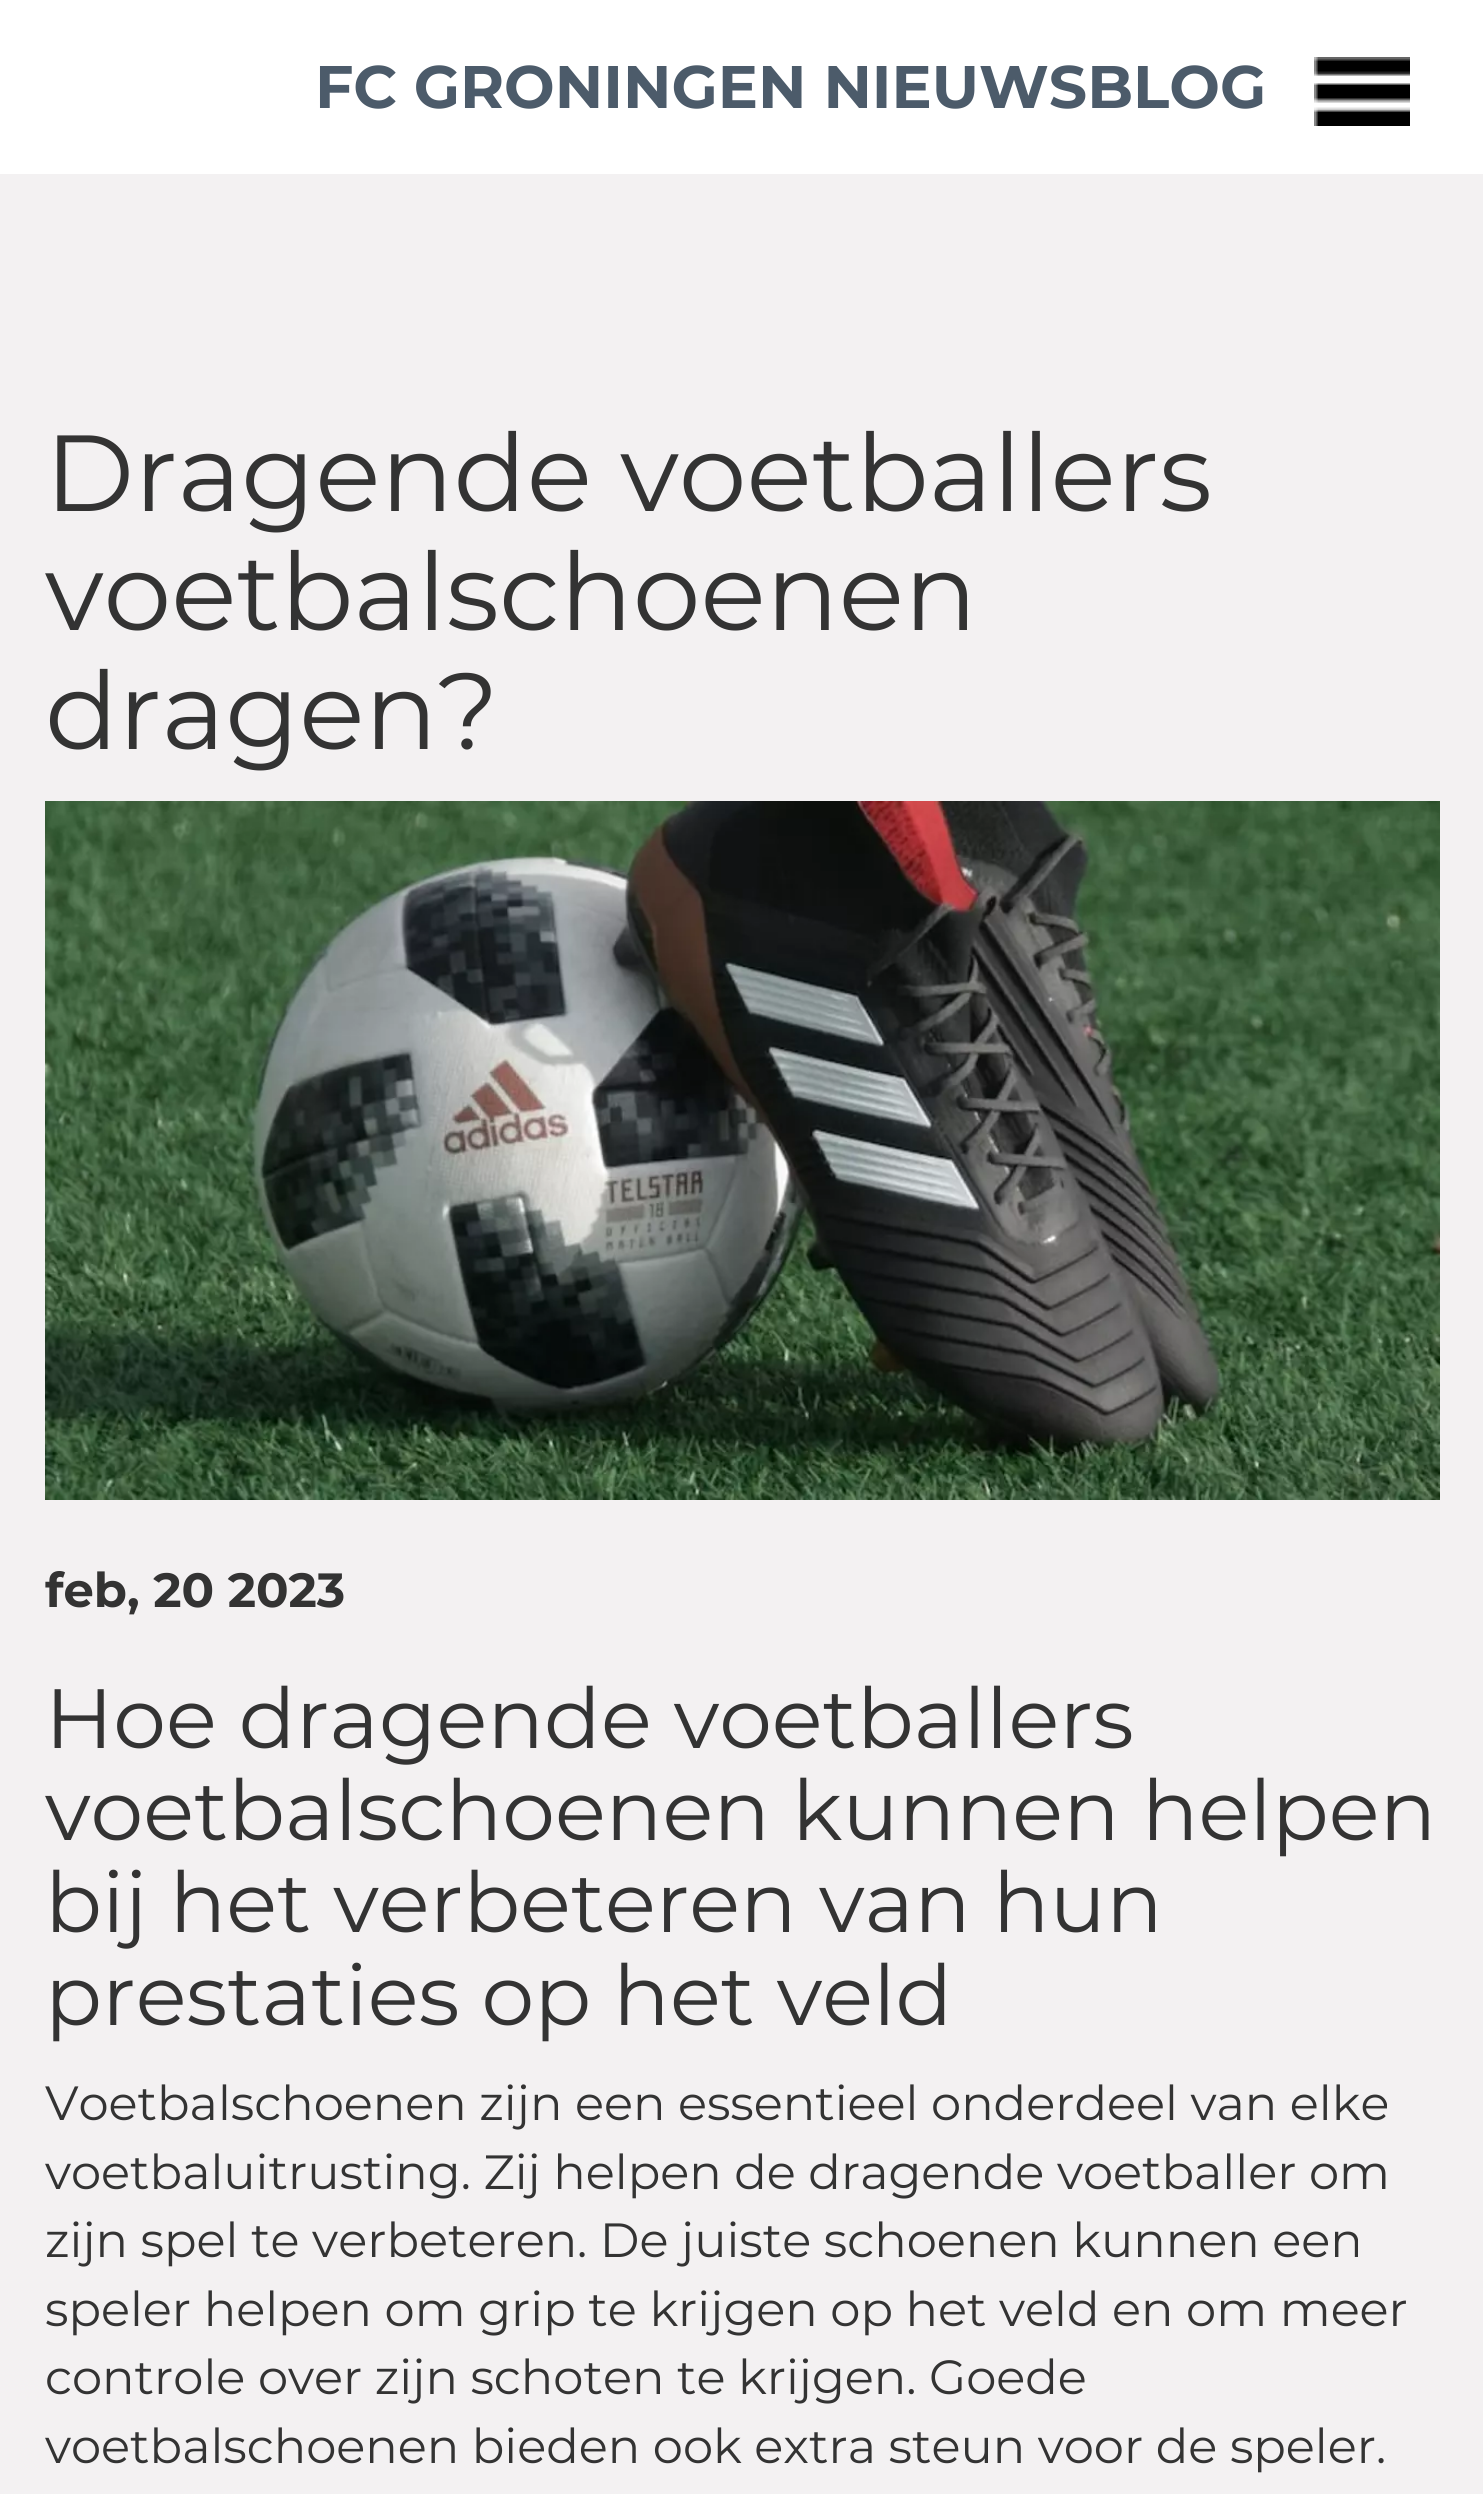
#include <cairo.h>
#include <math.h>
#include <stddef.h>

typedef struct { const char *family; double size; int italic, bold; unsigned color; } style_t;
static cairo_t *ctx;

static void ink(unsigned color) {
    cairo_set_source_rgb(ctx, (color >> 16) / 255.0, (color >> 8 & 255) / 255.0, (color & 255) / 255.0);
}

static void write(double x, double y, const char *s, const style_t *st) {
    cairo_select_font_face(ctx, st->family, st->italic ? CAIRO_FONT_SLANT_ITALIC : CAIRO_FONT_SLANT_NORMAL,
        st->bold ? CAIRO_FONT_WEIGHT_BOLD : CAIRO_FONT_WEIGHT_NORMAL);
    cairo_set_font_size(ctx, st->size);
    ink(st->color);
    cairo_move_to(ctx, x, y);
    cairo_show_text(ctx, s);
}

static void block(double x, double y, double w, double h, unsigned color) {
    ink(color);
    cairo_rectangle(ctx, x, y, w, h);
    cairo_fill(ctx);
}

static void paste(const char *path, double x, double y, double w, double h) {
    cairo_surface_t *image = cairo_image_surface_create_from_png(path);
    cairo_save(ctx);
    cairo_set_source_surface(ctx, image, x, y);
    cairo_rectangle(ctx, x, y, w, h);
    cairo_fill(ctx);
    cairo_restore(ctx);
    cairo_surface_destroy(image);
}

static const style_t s1 = {"Montserrat", 60, 0, 1, 0x4c5b6a};
static const style_t s2 = {"Montserrat", 108, 0, 0, 0x333333};
static const style_t s3 = {"Montserrat", 48, 0, 1, 0x333333};
static const style_t s4 = {"Montserrat", 84, 0, 0, 0x333333};
static const style_t s5 = {"Montserrat", 48, 0, 0, 0x333333};

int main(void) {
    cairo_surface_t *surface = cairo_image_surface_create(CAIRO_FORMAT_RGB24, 1483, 2494);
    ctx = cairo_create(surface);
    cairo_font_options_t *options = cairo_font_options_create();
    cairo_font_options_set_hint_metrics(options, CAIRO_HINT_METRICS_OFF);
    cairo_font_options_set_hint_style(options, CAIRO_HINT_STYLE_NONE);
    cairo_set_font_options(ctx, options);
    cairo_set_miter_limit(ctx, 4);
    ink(0xffffff);
    cairo_paint(ctx);
    write(315, 108, "FC GRONINGEN NIEUWSBLOG", &s1);
    paste("pic1.png", 1314, 57, 96, 69);
    block(0, 174, 1483, 2320, 0xf3f1f2);
    write(45, 511, "Dragende voetballers", &s2);
    write(45, 630, "voetbalschoenen", &s2);
    write(45, 749, "dragen?", &s2);
    paste("pic2.png", 45, 801, 1395, 699);
    write(45, 1607, "feb, 20 2023", &s3);
    write(45, 1748, "Hoe dragende voetballers", &s4);
    write(45, 1840, "voetbalschoenen kunnen helpen", &s4);
    write(45, 1932, "bij het verbeteren van hun", &s4);
    write(45, 2025, "prestaties op het veld", &s4);
    write(45, 2120, "Voetbalschoenen zijn een essentieel onderdeel van elke", &s5);
    write(45, 2189, "voetbaluitrusting. Zij helpen de dragende voetballer om", &s5);
    write(45, 2257, "zijn spel te verbeteren. De juiste schoenen kunnen een", &s5);
    write(45, 2326, "speler helpen om grip te krijgen op het veld en om meer", &s5);
    write(45, 2394, "controle over zijn schoten te krijgen. Goede", &s5);
    write(45, 2463, "voetbalschoenen bieden ook extra steun voor de speler.", &s5);
    cairo_surface_write_to_png(surface, "screenshot.png");
    cairo_font_options_destroy(options);
    cairo_destroy(ctx);
    cairo_surface_destroy(surface);
    return 0;
}
